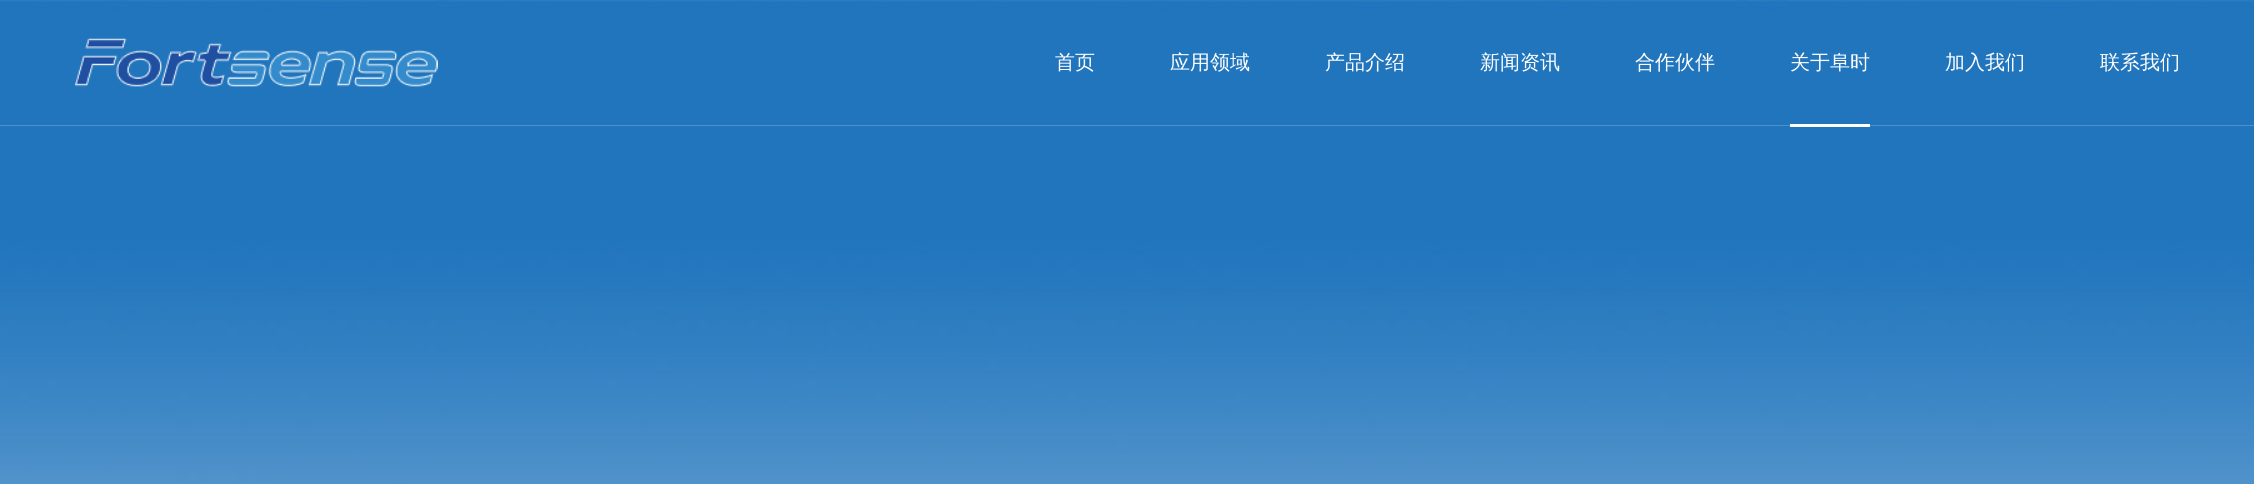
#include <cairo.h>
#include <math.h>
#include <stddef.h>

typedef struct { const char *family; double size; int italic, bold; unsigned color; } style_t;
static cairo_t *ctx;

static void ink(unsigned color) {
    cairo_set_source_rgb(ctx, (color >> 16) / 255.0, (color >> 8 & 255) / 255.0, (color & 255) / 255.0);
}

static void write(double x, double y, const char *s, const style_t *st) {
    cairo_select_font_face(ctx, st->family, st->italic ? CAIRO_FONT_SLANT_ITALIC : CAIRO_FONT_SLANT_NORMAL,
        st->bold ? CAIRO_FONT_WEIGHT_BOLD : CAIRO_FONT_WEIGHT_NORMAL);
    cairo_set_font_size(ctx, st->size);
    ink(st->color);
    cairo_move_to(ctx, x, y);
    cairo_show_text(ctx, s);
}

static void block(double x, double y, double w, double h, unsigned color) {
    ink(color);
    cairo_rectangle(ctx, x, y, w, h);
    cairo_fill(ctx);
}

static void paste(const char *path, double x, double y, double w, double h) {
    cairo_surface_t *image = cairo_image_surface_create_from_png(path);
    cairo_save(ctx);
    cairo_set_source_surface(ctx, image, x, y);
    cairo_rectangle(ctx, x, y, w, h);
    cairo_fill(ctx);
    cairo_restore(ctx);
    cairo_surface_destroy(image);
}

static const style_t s1 = {"WenQuanYi Zen Hei Medium", 20, 0, 0, 0xffffff};

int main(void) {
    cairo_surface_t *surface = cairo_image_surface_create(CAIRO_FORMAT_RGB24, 2254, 484);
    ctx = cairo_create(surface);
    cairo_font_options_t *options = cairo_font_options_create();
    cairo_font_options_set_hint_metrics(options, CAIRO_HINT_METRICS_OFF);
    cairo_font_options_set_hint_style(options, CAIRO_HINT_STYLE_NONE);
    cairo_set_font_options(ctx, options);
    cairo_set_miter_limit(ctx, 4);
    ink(0xffffff);
    cairo_paint(ctx);
    paste("pic1.png", 0, 0, 2254, 484);
    block(0, 125, 2254, 1, 0x4d91ca);
    paste("pic2.png", 75, 38, 363, 49);
    write(1055, 69, "首页", &s1);
    write(1170, 69, "应用领域", &s1);
    write(1325, 69, "产品介绍", &s1);
    write(1480, 69, "新闻资讯", &s1);
    write(1635, 69, "合作伙伴", &s1);
    write(1790, 69, "关于阜时", &s1);
    block(1790, 124, 80, 3, 0xffffff);
    write(1945, 69, "加入我们", &s1);
    write(2100, 69, "联系我们", &s1);
    cairo_surface_write_to_png(surface, "screenshot.png");
    cairo_font_options_destroy(options);
    cairo_destroy(ctx);
    cairo_surface_destroy(surface);
    return 0;
}
